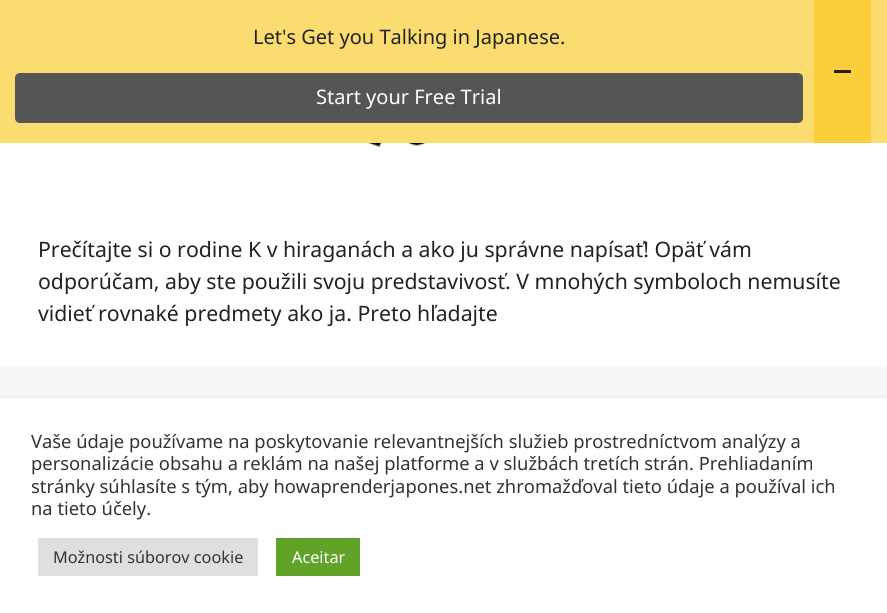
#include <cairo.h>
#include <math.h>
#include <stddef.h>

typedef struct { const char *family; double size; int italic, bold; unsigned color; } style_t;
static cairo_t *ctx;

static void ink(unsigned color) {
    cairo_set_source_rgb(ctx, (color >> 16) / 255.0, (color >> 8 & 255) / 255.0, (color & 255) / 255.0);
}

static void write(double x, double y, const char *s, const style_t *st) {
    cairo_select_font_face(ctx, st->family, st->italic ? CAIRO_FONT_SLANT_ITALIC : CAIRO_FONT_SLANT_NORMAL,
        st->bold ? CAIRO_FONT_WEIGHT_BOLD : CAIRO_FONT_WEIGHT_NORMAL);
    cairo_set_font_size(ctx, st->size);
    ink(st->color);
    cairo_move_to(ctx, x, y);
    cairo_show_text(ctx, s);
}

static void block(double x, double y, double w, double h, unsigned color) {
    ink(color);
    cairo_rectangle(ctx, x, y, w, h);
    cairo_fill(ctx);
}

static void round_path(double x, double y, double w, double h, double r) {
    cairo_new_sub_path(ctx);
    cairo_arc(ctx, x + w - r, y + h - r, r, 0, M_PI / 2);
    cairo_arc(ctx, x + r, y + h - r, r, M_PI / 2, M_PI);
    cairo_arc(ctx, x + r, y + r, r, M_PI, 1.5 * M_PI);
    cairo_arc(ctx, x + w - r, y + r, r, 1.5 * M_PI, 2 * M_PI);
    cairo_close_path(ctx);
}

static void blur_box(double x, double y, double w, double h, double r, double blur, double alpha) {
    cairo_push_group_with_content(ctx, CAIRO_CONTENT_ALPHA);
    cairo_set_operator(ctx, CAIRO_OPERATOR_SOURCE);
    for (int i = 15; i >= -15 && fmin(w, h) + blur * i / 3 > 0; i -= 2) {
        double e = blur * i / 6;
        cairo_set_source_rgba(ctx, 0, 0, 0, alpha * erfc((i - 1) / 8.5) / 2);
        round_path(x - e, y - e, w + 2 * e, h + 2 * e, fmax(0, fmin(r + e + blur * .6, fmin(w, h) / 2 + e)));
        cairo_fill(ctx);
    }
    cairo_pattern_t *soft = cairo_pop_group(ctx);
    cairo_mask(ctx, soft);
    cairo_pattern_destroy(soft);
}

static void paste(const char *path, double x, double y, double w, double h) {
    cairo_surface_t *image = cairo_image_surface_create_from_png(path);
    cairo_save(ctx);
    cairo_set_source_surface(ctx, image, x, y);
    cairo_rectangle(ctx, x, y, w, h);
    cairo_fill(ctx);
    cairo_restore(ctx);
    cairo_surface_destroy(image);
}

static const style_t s1 = {"Noto Sans", 20, 0, 0, 0x222222};
static const style_t s2 = {"Noto Sans", 20, 0, 0, 0xffffff};
static const style_t s3 = {"Noto Sans", 21.25, 0, 0, 0x222222};
static const style_t s4 = {"Noto Sans", 18.35, 0, 0, 0x333333};
static const style_t s5 = {"Noto Sans", 16.25, 0, 0, 0x333333};
static const style_t s6 = {"Noto Sans", 16.25, 0, 0, 0xffffff};

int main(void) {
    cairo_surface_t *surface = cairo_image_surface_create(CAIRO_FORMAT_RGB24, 887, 613);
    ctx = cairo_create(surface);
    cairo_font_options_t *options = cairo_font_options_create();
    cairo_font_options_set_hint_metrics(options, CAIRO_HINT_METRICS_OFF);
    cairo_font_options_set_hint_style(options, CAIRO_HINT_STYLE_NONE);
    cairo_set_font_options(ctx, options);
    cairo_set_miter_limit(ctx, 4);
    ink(0xf7f8f9);
    cairo_paint(ctx);
    block(0, 0, 887, 143, 0xfbdc70);
    write(253, 44, "Let's Get you Talking in Japanese.", &s1);
    ink(0x555555);
    round_path(15, 73, 788, 50, 5);
    cairo_fill(ctx);
    write(316, 104, "Start your Free Trial", &s2);
    block(814, 0, 57, 143, 0xfacf3b);
    block(834, 70, 17, 3, 0x222222);
    block(0, 143, 887, 223, 0xffffff);
    paste("pic1.png", 366, 143, 117, 5);
    write(38, 257, "Prečítajte si o rodine K v hiraganách a ako ju správne napísať! Opäť vám", &s3);
    write(38, 289, "odporúčam, aby ste použili svoju predstavivosť. V mnohých symboloch nemusíte", &s3);
    write(38, 321, "vidieť rovnaké predmety ako ja. Preto hľadajte", &s3);
    block(0, 391, 887, 7, 0xffffff);
    ink(0xacabab);
    blur_box(0, 396, 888, 217, 0, 6, 0.3);
    block(0, 398, 887, 215, 0xffffff);
    write(31, 448, "Vaše údaje používame na poskytovanie relevantnejších služieb prostredníctvom analýzy a", &s4);
    write(31, 470, "personalizácie obsahu a reklám na našej platforme a v službách tretích strán. Prehliadaním", &s4);
    write(31, 493, "stránky súhlasíte s tým, aby howaprenderjapones.net zhromažďoval tieto údaje a používal ich", &s4);
    write(31, 515, "na tieto účely.", &s4);
    block(38, 538, 220, 38, 0xdedfe0);
    write(53, 563, "Možnosti súborov cookie", &s5);
    block(276, 538, 84, 38, 0x61a229);
    write(292, 563, "Aceitar", &s6);
    cairo_surface_write_to_png(surface, "screenshot.png");
    cairo_font_options_destroy(options);
    cairo_destroy(ctx);
    cairo_surface_destroy(surface);
    return 0;
}
